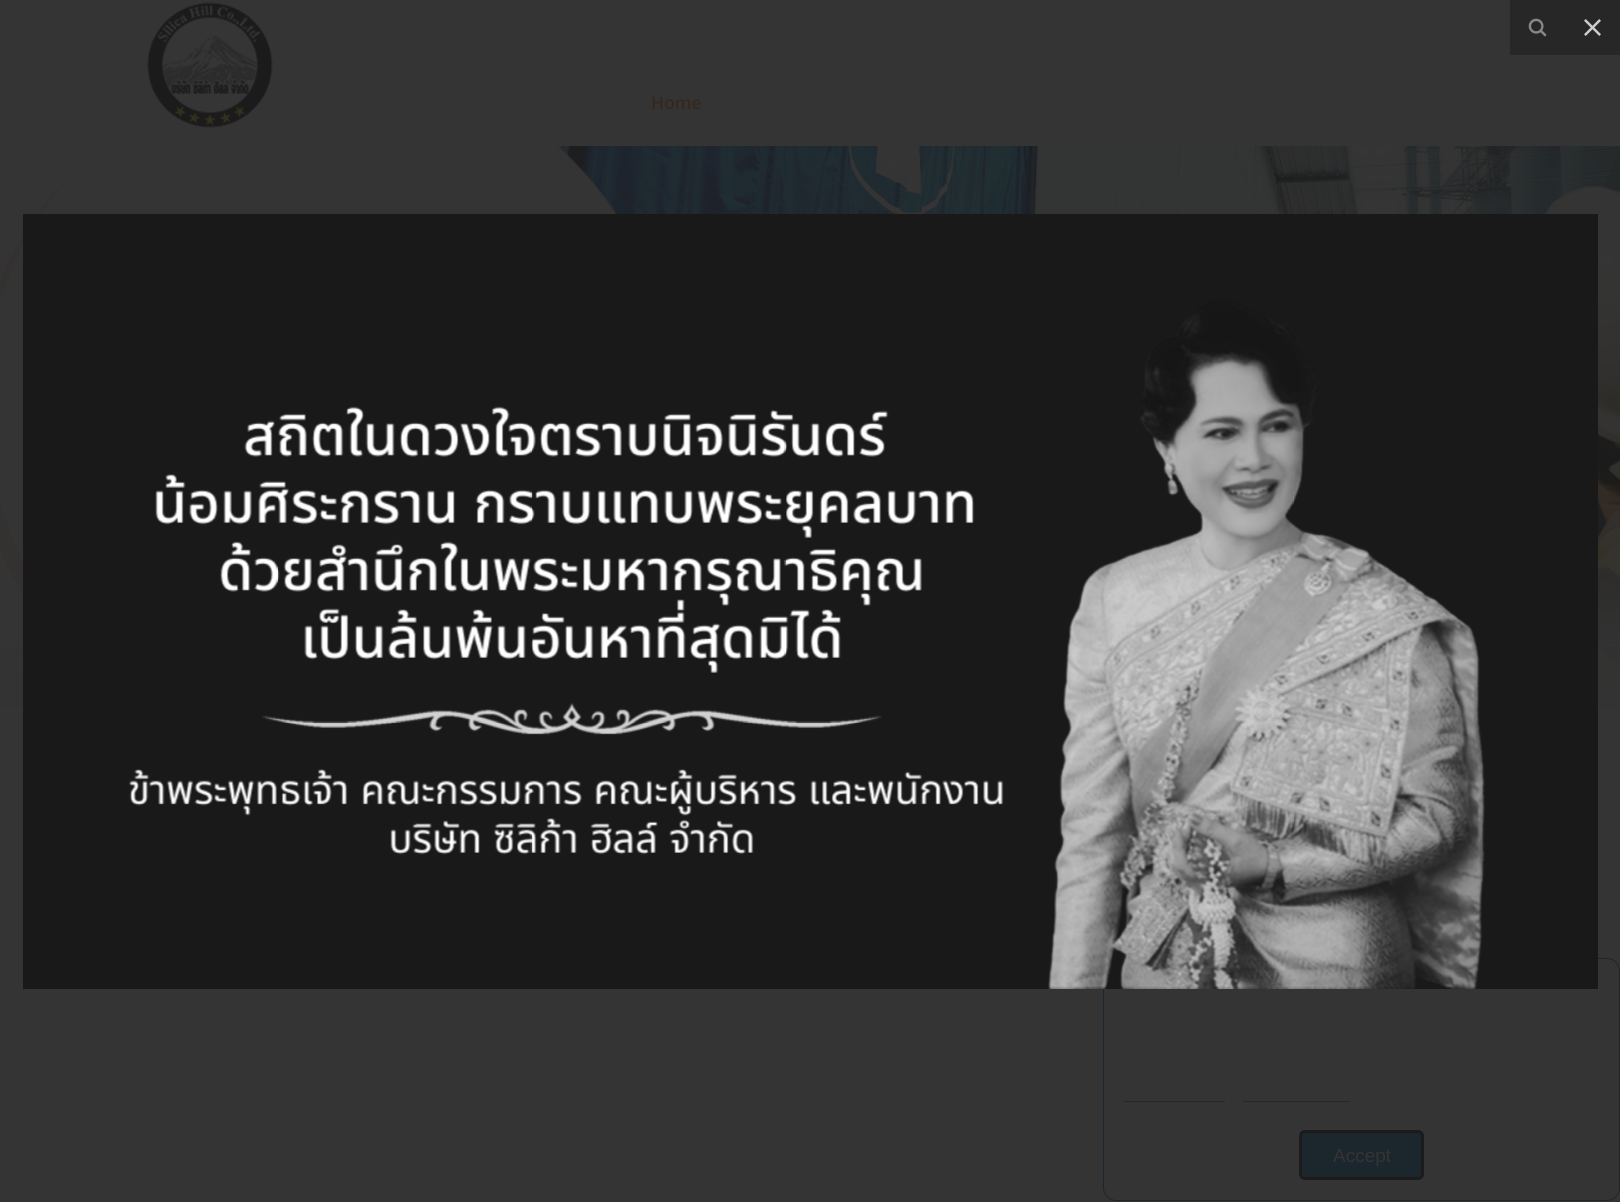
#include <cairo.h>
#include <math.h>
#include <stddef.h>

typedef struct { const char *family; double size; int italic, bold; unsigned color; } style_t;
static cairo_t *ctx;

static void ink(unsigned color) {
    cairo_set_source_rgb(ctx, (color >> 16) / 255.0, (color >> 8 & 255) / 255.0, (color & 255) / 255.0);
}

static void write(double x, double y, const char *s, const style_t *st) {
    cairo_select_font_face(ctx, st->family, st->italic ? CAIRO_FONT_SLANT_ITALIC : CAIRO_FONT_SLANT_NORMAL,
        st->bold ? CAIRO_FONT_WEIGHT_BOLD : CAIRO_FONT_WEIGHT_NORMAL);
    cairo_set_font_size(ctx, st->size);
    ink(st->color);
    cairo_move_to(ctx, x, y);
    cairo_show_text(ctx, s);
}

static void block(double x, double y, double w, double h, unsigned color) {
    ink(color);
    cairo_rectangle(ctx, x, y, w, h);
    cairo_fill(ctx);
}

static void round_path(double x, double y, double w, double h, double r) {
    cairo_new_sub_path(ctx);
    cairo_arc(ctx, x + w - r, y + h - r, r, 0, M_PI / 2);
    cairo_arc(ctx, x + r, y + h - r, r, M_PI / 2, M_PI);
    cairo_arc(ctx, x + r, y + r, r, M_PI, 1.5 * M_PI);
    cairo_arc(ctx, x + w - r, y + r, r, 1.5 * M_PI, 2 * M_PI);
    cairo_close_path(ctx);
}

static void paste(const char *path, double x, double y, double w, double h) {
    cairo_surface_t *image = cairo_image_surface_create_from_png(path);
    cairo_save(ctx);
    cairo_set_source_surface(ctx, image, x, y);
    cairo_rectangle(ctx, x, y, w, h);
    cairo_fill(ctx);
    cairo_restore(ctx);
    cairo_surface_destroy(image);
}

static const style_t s1 = {"Open Sans SemiBold", 17.5, 0, 0, 0x33281e};
static const style_t s2 = {"Liberation Sans", 19, 0, 0, 0x343434};

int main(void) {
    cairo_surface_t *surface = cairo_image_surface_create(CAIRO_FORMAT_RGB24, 1620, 1202);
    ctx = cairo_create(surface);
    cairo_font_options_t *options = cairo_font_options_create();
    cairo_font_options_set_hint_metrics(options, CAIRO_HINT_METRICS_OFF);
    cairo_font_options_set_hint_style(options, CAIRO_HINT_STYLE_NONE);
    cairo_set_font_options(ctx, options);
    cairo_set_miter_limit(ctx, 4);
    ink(0x343434);
    cairo_paint(ctx);
    block(1510, 0, 110, 55, 0x272727);
    paste("pic1.png", 1528, 18, 19, 19);
    paste("pic2.png", 1584, 19, 17, 17);
    paste("pic5.png", 556, 146, 1064, 563);
    paste("pic6.png", 0, 563, 1620, 146);
    paste("pic7.png", 0, 160, 87, 435);
    paste("pic8.png", 0, 146, 618, 416);
    paste("pic9.png", 0, 745, 1620, 76);
    round_path(1103.5, 958.5, 516, 242, 12.5);
    ink(0x1b272d);
    cairo_set_line_width(ctx, 1);
    cairo_stroke(ctx);
    paste("pic3.png", 23, 214, 1575, 775);
    paste("pic4.png", 147, 2, 126, 126);
    write(651, 109, "Home", &s1);
    block(1124, 1101, 101, 1, 0x272727);
    block(1243, 1101, 107, 1, 0x272727);
    ink(0x1b262d);
    round_path(1300.5, 1131.5, 122, 47, 4.5);
    cairo_fill_preserve(ctx);
    ink(0x1b1b1b);
    cairo_set_line_width(ctx, 3);
    cairo_stroke(ctx);
    write(1333, 1162, "Accept", &s2);
    cairo_surface_write_to_png(surface, "screenshot.png");
    cairo_font_options_destroy(options);
    cairo_destroy(ctx);
    cairo_surface_destroy(surface);
    return 0;
}
